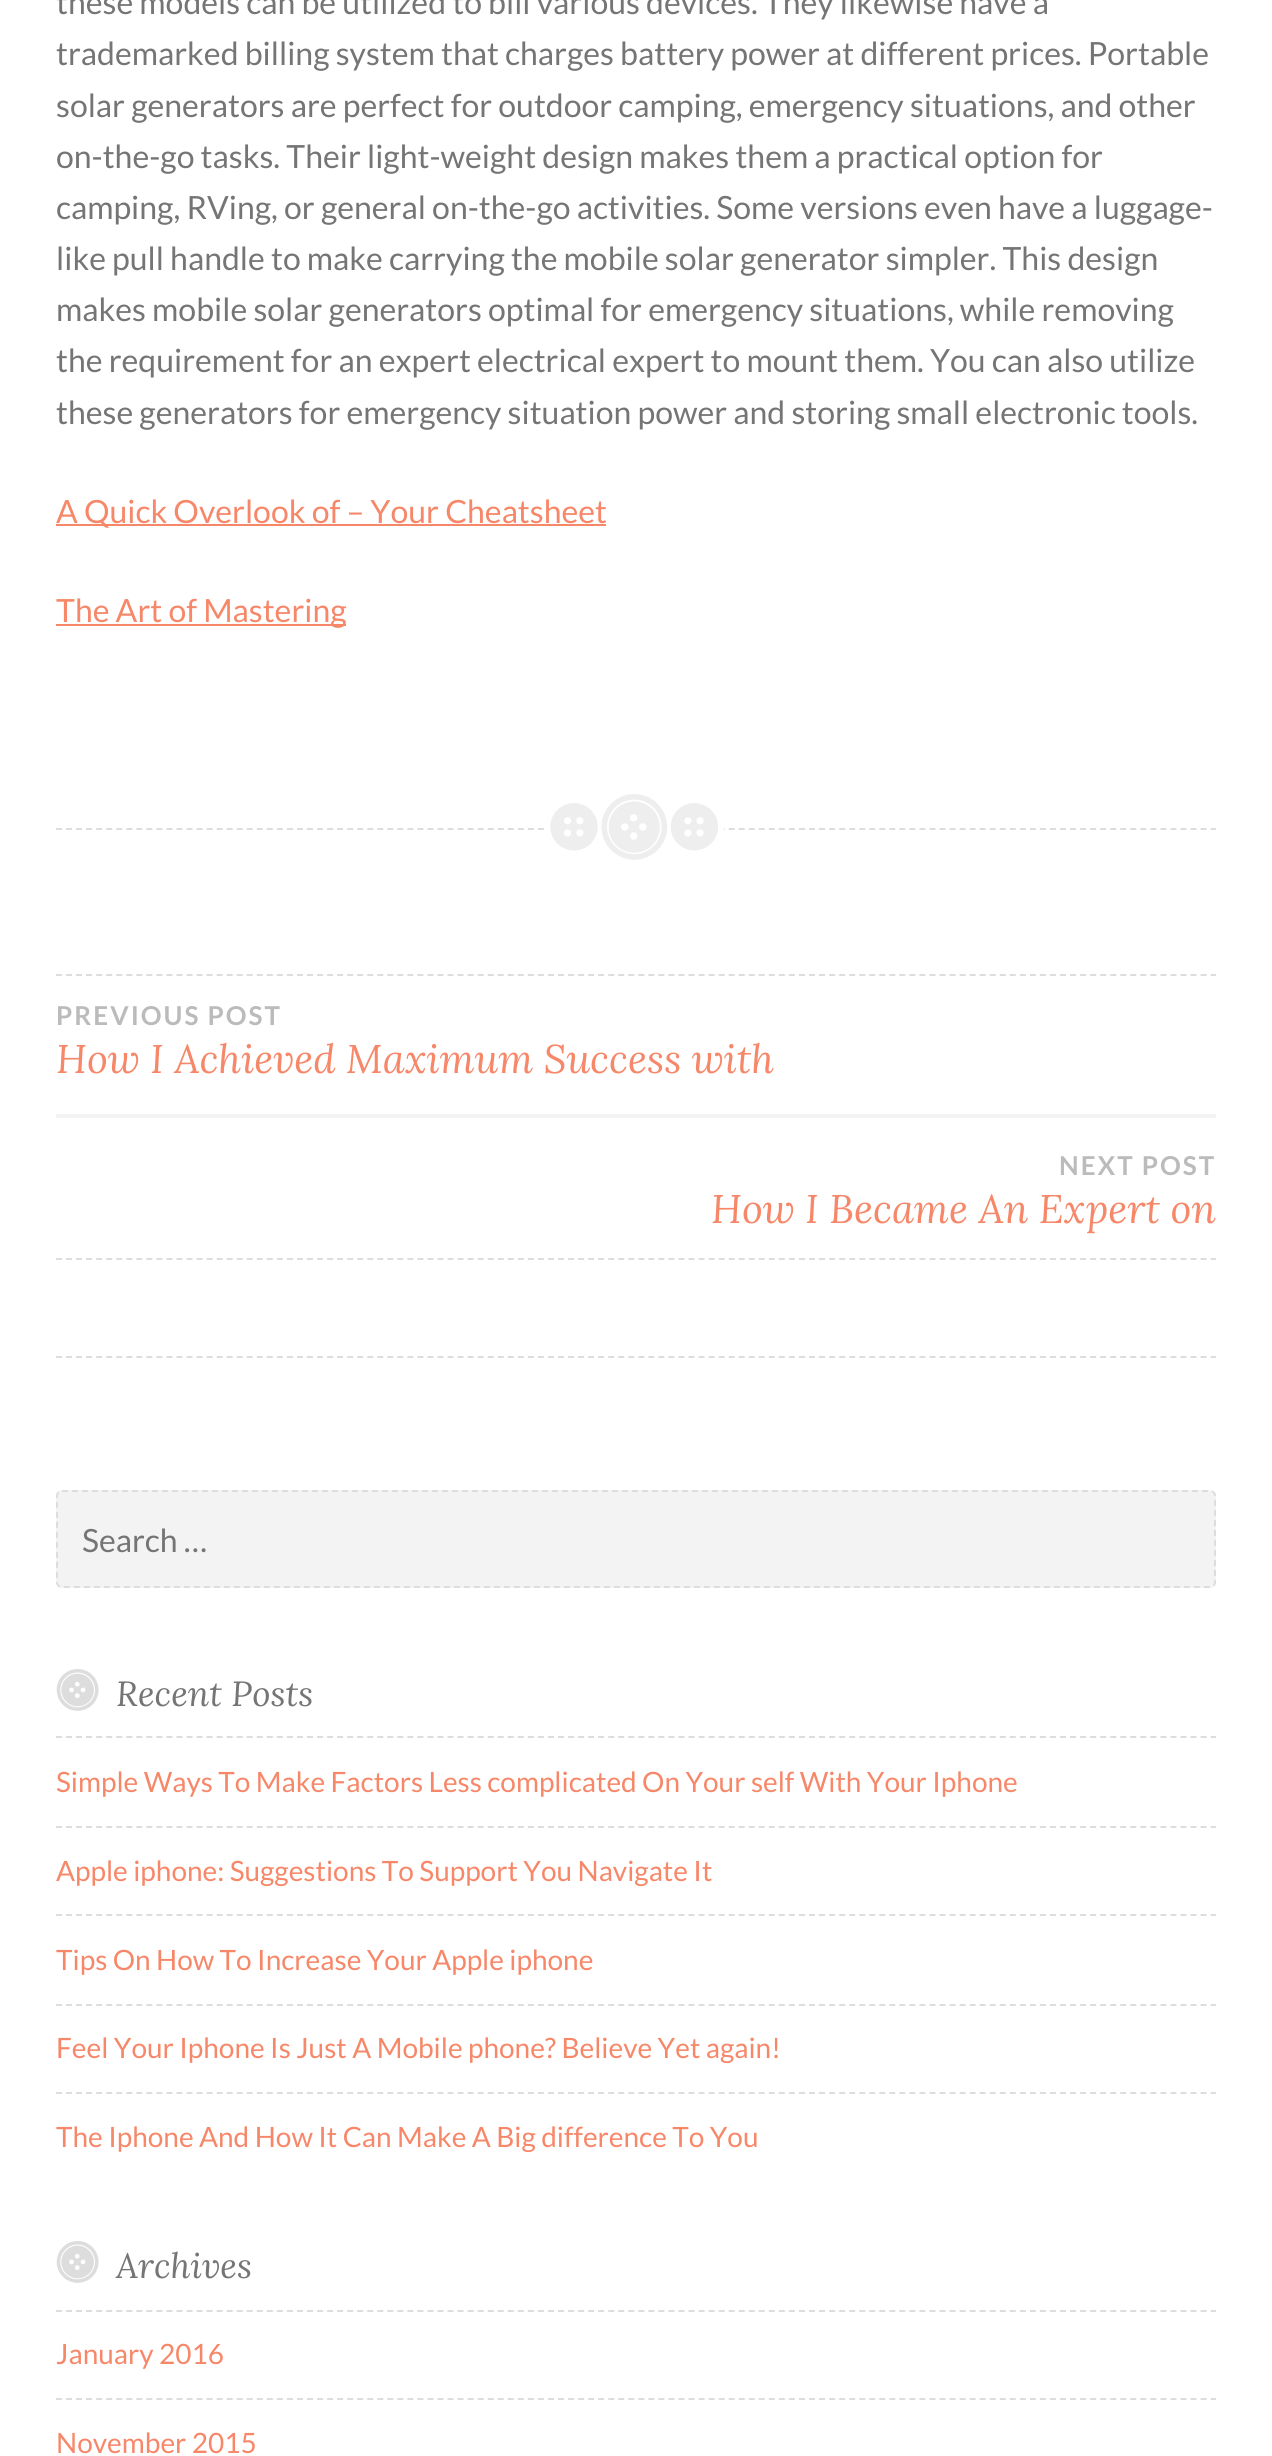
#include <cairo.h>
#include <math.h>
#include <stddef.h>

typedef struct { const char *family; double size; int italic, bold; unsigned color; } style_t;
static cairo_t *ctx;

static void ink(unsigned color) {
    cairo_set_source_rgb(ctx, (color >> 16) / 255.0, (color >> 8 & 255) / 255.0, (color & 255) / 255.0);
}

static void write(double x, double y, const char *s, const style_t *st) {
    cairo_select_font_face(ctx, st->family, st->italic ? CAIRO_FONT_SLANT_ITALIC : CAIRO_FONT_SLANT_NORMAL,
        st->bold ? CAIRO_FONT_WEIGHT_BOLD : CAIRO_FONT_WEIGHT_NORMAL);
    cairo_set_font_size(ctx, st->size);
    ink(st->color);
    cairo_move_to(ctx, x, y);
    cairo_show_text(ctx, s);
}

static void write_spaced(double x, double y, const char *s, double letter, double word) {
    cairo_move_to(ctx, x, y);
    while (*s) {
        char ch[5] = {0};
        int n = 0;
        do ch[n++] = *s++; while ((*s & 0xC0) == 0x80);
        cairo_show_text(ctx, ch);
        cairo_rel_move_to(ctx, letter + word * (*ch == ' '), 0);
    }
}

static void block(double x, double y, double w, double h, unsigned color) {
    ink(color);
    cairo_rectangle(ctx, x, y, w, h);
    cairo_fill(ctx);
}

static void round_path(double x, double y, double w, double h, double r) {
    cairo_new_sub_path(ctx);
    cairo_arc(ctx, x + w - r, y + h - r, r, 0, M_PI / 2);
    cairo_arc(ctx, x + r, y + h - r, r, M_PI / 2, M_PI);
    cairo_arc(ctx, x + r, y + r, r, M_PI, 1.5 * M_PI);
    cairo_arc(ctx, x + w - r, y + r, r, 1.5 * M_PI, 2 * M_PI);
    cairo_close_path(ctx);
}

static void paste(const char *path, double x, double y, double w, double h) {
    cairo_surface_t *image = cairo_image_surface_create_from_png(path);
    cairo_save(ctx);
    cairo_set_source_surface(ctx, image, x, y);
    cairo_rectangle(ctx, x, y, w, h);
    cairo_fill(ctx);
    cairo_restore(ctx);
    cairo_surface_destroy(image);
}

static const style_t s1 = {"Lato", 32, 0, 0, 0x757575};
static const style_t s2 = {"Lato", 32, 0, 0, 0xf78769};
static const style_t s3 = {"Lora", 40, 1, 0, 0xf78769};
static const style_t s4 = {"Lora", 35, 1, 0, 0x757575};
static const style_t s5 = {"Lato", 28, 0, 0, 0xf78769};

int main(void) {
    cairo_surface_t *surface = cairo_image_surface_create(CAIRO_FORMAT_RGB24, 1272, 2456);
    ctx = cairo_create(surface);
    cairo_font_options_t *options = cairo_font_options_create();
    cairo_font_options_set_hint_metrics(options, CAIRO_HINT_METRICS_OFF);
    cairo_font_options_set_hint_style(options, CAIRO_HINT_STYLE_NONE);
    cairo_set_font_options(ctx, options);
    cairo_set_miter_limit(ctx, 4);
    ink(0xffffff);
    cairo_paint(ctx);
    cairo_new_path(ctx);
    cairo_move_to(ctx, 56, 829);
    cairo_line_to(ctx, 1216, 829);
    ink(0xdddddd);
    cairo_set_dash(ctx, (double[]){6, 4.04}, 2, 0);
    cairo_stroke(ctx);
    write(56, 14, "these models can be utilized to bill various devices. They likewise have a", &s1);
    write(56, 65, "trademarked billing system that charges battery power at different prices. Portable", &s1);
    write(56, 117, "solar generators are perfect for outdoor camping, emergency situations, and other", &s1);
    write(56, 168, "on-the-go tasks. Their light-weight design makes them a practical option for", &s1);
    write(56, 219, "camping, RVing, or general on-the-go activities. Some versions even have a luggage-", &s1);
    write(56, 270, "like pull handle to make carrying the mobile solar generator simpler. This design", &s1);
    write(56, 321, "makes mobile solar generators optimal for emergency situations, while removing", &s1);
    write(56, 372, "the requirement for an expert electrical expert to mount them. You can also utilize", &s1);
    write(56, 424, "these generators for emergency situation power and storing small electronic tools.", &s1);
    block(56, 524, 550, 2, 0xf78769);
    write(56, 523, "A Quick Overlook of – Your Cheatsheet", &s2);
    block(56, 624, 290, 2, 0xf78769);
    write(56, 622, "The Art of Mastering", &s2);
    block(548, 828, 176, 2, 0xffffff);
    paste("pic1.png", 550, 794, 168, 66);
    cairo_new_path(ctx);
    cairo_move_to(ctx, 56, 975);
    cairo_line_to(ctx, 1216, 975);
    ink(0xdddddd);
    cairo_stroke(ctx);
    cairo_new_path(ctx);
    cairo_move_to(ctx, 56, 1259);
    cairo_line_to(ctx, 1216, 1259);
    cairo_stroke(ctx);
    block(56, 1114, 1160, 4, 0xf3f3f3);
    cairo_select_font_face(ctx, "Lato", CAIRO_FONT_SLANT_NORMAL, CAIRO_FONT_WEIGHT_BOLD);
    cairo_set_font_size(ctx, 26);
    ink(0xbbbbbb);
    write_spaced(56, 1025, "PREVIOUS POST", 2, 0);
    write(56, 1073, "How I Achieved Maximum Success with", &s3);
    cairo_select_font_face(ctx, "Lato", CAIRO_FONT_SLANT_NORMAL, CAIRO_FONT_WEIGHT_BOLD);
    cairo_set_font_size(ctx, 26);
    ink(0xbbbbbb);
    write_spaced(1059, 1175, "NEXT POST", 2, 0);
    write(711, 1223, "How I Became An Expert on", &s3);
    cairo_new_path(ctx);
    cairo_move_to(ctx, 56, 1357);
    cairo_line_to(ctx, 1216, 1357);
    ink(0xdddddd);
    cairo_stroke(ctx);
    ink(0xf3f3f3);
    round_path(56, 1490, 1160, 98, 6);
    cairo_fill(ctx);
    cairo_new_path(ctx);
    cairo_move_to(ctx, 62, 1491);
    cairo_line_to(ctx, 1210, 1491);
    cairo_curve_to(ctx, 1213, 1491, 1215, 1493, 1215, 1496);
    cairo_line_to(ctx, 1215, 1582);
    cairo_curve_to(ctx, 1215, 1585, 1213, 1587, 1210, 1587);
    cairo_line_to(ctx, 62, 1587);
    cairo_curve_to(ctx, 59, 1587, 57, 1585, 57, 1582);
    cairo_line_to(ctx, 57, 1496);
    cairo_curve_to(ctx, 57, 1493, 59, 1491, 62, 1491);
    cairo_close_path(ctx);
    ink(0xdddddd);
    cairo_set_dash(ctx, (double[]){6, 4}, 2, 0);
    cairo_stroke(ctx);
    write(82, 1552, "Search …", &s1);
    paste("pic2.png", 56, 1669, 43, 42);
    write(116, 1706, "Recent Posts", &s4);
    cairo_new_path(ctx);
    cairo_move_to(ctx, 56, 1737);
    cairo_line_to(ctx, 1216, 1737);
    ink(0xdddddd);
    cairo_set_dash(ctx, (double[]){6, 4.04}, 2, 0);
    cairo_stroke(ctx);
    write(56, 1792, "Simple Ways To Make Factors Less complicated On Your self With Your Iphone", &s5);
    cairo_new_path(ctx);
    cairo_move_to(ctx, 56, 1827);
    cairo_line_to(ctx, 1216, 1827);
    ink(0xdddddd);
    cairo_stroke(ctx);
    write(56, 1881, "Apple iphone: Suggestions To Support You Navigate It", &s5);
    cairo_new_path(ctx);
    cairo_move_to(ctx, 56, 1915);
    cairo_line_to(ctx, 1216, 1915);
    ink(0xdddddd);
    cairo_stroke(ctx);
    write(56, 1970, "Tips On How To Increase Your Apple iphone", &s5);
    cairo_new_path(ctx);
    cairo_move_to(ctx, 56, 2005);
    cairo_line_to(ctx, 1216, 2005);
    ink(0xdddddd);
    cairo_stroke(ctx);
    write(56, 2058, "Feel Your Iphone Is Just A Mobile phone? Believe Yet again!", &s5);
    cairo_new_path(ctx);
    cairo_move_to(ctx, 56, 2093);
    cairo_line_to(ctx, 1216, 2093);
    ink(0xdddddd);
    cairo_stroke(ctx);
    write(56, 2147, "The Iphone And How It Can Make A Big difference To You", &s5);
    paste("pic2.png", 56, 2241, 43, 42);
    write(116, 2278, "Archives", &s4);
    cairo_new_path(ctx);
    cairo_move_to(ctx, 56, 2311);
    cairo_line_to(ctx, 1216, 2311);
    ink(0xdddddd);
    cairo_stroke(ctx);
    write(56, 2364, "January 2016", &s5);
    cairo_new_path(ctx);
    cairo_move_to(ctx, 56, 2399);
    cairo_line_to(ctx, 1216, 2399);
    ink(0xdddddd);
    cairo_stroke(ctx);
    write(56, 2453, "November 2015", &s5);
    cairo_surface_write_to_png(surface, "screenshot.png");
    cairo_font_options_destroy(options);
    cairo_destroy(ctx);
    cairo_surface_destroy(surface);
    return 0;
}
